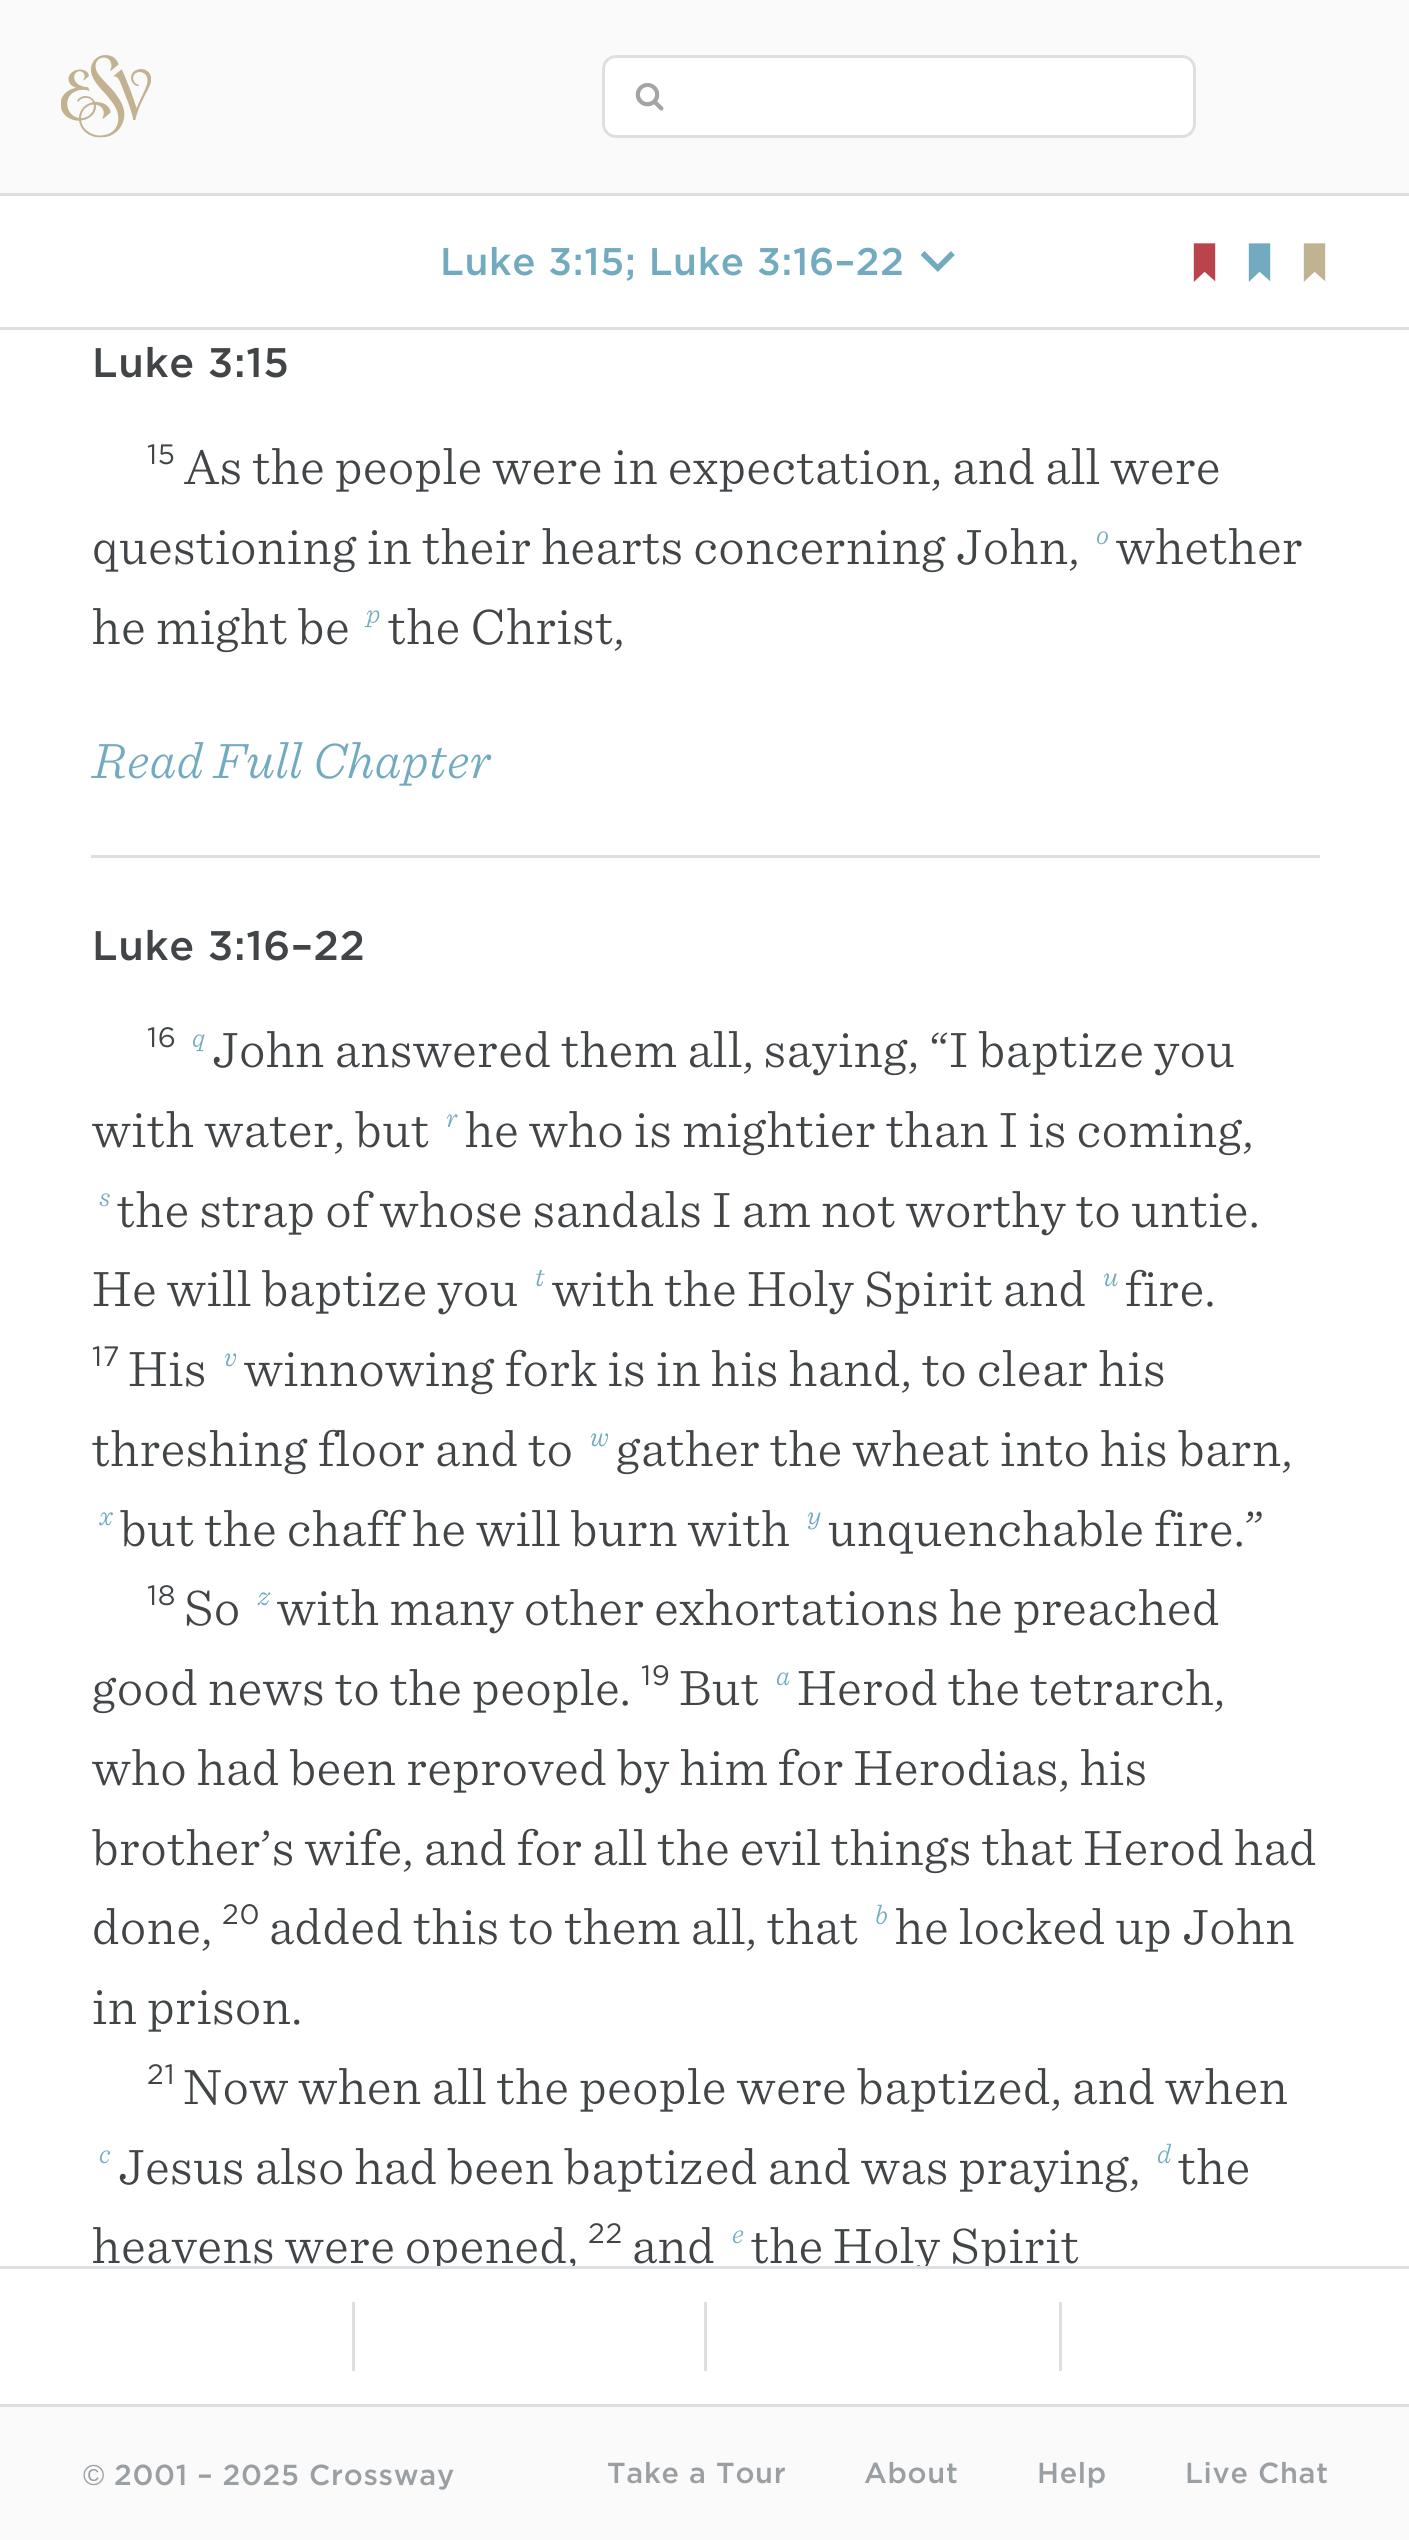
#include <cairo.h>
#include <math.h>
#include <stddef.h>

static cairo_t *ctx;

static void ink(unsigned color) {
    cairo_set_source_rgb(ctx, (color >> 16) / 255.0, (color >> 8 & 255) / 255.0, (color & 255) / 255.0);
}

static void write_spaced(double x, double y, const char *s, double letter, double word) {
    cairo_move_to(ctx, x, y);
    while (*s) {
        char ch[5] = {0};
        int n = 0;
        do ch[n++] = *s++; while ((*s & 0xC0) == 0x80);
        cairo_show_text(ctx, ch);
        cairo_rel_move_to(ctx, letter + word * (*ch == ' '), 0);
    }
}

static void block(double x, double y, double w, double h, unsigned color) {
    ink(color);
    cairo_rectangle(ctx, x, y, w, h);
    cairo_fill(ctx);
}

static void round_path(double x, double y, double w, double h, double r) {
    cairo_new_sub_path(ctx);
    cairo_arc(ctx, x + w - r, y + h - r, r, 0, M_PI / 2);
    cairo_arc(ctx, x + r, y + h - r, r, M_PI / 2, M_PI);
    cairo_arc(ctx, x + r, y + r, r, M_PI, 1.5 * M_PI);
    cairo_arc(ctx, x + w - r, y + r, r, 1.5 * M_PI, 2 * M_PI);
    cairo_close_path(ctx);
}

static void paste(const char *path, double x, double y, double w, double h) {
    cairo_surface_t *image = cairo_image_surface_create_from_png(path);
    cairo_save(ctx);
    cairo_set_source_surface(ctx, image, x, y);
    cairo_rectangle(ctx, x, y, w, h);
    cairo_fill(ctx);
    cairo_restore(ctx);
    cairo_surface_destroy(image);
}

int main(void) {
    cairo_surface_t *surface = cairo_image_surface_create(CAIRO_FORMAT_RGB24, 1409, 2540);
    ctx = cairo_create(surface);
    cairo_font_options_t *options = cairo_font_options_create();
    cairo_font_options_set_hint_metrics(options, CAIRO_HINT_METRICS_OFF);
    cairo_font_options_set_hint_style(options, CAIRO_HINT_STYLE_NONE);
    cairo_set_font_options(ctx, options);
    cairo_set_miter_limit(ctx, 4);
    ink(0xfafafa);
    cairo_paint(ctx);
    paste("pic1.png", 61, 55, 90, 83);
    ink(0xffffff);
    round_path(602, 55, 594, 83, 14);
    cairo_fill(ctx);
    paste("pic2.png", 635, 83, 29, 28);
    round_path(603.5, 56.5, 591, 80, 12.5);
    ink(0xdce0e3);
    cairo_set_line_width(ctx, 3);
    cairo_stroke(ctx);
    block(0, 196, 1409, 2208, 0xffffff);
    block(0, 193, 1409, 3, 0xdce0e3);
    block(0, 327, 1409, 3, 0xdce0e3);
    cairo_select_font_face(ctx, "Gotham Medium", CAIRO_FONT_SLANT_NORMAL, CAIRO_FONT_WEIGHT_NORMAL);
    cairo_set_font_size(ctx, 38.5);
    ink(0x72abbf);
    write_spaced(440, 275, "Luke 3:15; Luke 3:16–22", 0.7, 0);
    paste("pic3.png", 920, 251, 35, 21);
    ink(0xba444b);
    cairo_set_fill_rule(ctx, CAIRO_FILL_RULE_EVEN_ODD);
    cairo_new_path(ctx);
    cairo_move_to(ctx, 1195.5, 245);
    cairo_line_to(ctx, 1195.5, 278);
    cairo_line_to(ctx, 1204.5, 269.5);
    cairo_line_to(ctx, 1213.5, 277.5);
    cairo_line_to(ctx, 1213.5, 245);
    cairo_close_path(ctx);
    cairo_fill_preserve(ctx);
    cairo_set_line_width(ctx, 3.4);
    cairo_stroke(ctx);
    ink(0x72abbf);
    cairo_new_path(ctx);
    cairo_move_to(ctx, 1250.5, 245);
    cairo_line_to(ctx, 1250.5, 278);
    cairo_line_to(ctx, 1259.5, 269.5);
    cairo_line_to(ctx, 1268.5, 277.5);
    cairo_line_to(ctx, 1268.5, 245);
    cairo_close_path(ctx);
    cairo_fill_preserve(ctx);
    cairo_stroke(ctx);
    ink(0xbfb391);
    cairo_new_path(ctx);
    cairo_move_to(ctx, 1305.5, 245);
    cairo_line_to(ctx, 1305.5, 278);
    cairo_line_to(ctx, 1314.5, 269.5);
    cairo_line_to(ctx, 1323.5, 277.5);
    cairo_line_to(ctx, 1323.5, 245);
    cairo_close_path(ctx);
    cairo_fill_preserve(ctx);
    cairo_stroke(ctx);
    cairo_set_font_size(ctx, 41.25);
    ink(0x424547);
    write_spaced(92, 377, "Luke 3:15", 0.7, 0);
    cairo_select_font_face(ctx, "Gotham", CAIRO_FONT_SLANT_NORMAL, CAIRO_FONT_WEIGHT_NORMAL);
    cairo_set_font_size(ctx, 28);
    write_spaced(147, 464, "15", 0.7, 0);
    cairo_select_font_face(ctx, "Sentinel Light", CAIRO_FONT_SLANT_NORMAL, CAIRO_FONT_WEIGHT_NORMAL);
    cairo_set_font_size(ctx, 52.25);
    write_spaced(184, 484, "As the people were in expectation, and all were", 0.7, 0);
    write_spaced(92, 564, "questioning in their hearts concerning John,", 0.7, 0);
    cairo_select_font_face(ctx, "Sentinel Light", CAIRO_FONT_SLANT_ITALIC, CAIRO_FONT_WEIGHT_NORMAL);
    cairo_set_font_size(ctx, 28);
    ink(0x72abbf);
    write_spaced(1096, 544, "o", 0.7, 0);
    cairo_select_font_face(ctx, "Sentinel Light", CAIRO_FONT_SLANT_NORMAL, CAIRO_FONT_WEIGHT_NORMAL);
    cairo_set_font_size(ctx, 52.25);
    ink(0x424547);
    write_spaced(1116, 564, "whether", 0.7, 0);
    write_spaced(92, 644, "he might be", 0.7, 0);
    cairo_select_font_face(ctx, "Sentinel Light", CAIRO_FONT_SLANT_ITALIC, CAIRO_FONT_WEIGHT_NORMAL);
    cairo_set_font_size(ctx, 28);
    ink(0x72abbf);
    write_spaced(366, 623, "p", 0.7, 0);
    cairo_select_font_face(ctx, "Sentinel Light", CAIRO_FONT_SLANT_NORMAL, CAIRO_FONT_WEIGHT_NORMAL);
    cairo_set_font_size(ctx, 52.25);
    ink(0x424547);
    write_spaced(388, 644, "the Christ,", 0.7, 0);
    cairo_select_font_face(ctx, "Sentinel Light", CAIRO_FONT_SLANT_ITALIC, CAIRO_FONT_WEIGHT_NORMAL);
    ink(0x72abbf);
    write_spaced(92, 778, "Read Full Chapter", 0.7, 0);
    block(91, 855, 1229, 3, 0xdce0e3);
    cairo_select_font_face(ctx, "Gotham Medium", CAIRO_FONT_SLANT_NORMAL, CAIRO_FONT_WEIGHT_NORMAL);
    cairo_set_font_size(ctx, 41.25);
    ink(0x424547);
    write_spaced(92, 960, "Luke 3:16–22", 0.7, 0);
    cairo_select_font_face(ctx, "Gotham", CAIRO_FONT_SLANT_NORMAL, CAIRO_FONT_WEIGHT_NORMAL);
    cairo_set_font_size(ctx, 28);
    write_spaced(147, 1047, "16", 0.7, 0);
    cairo_select_font_face(ctx, "Sentinel Light", CAIRO_FONT_SLANT_ITALIC, CAIRO_FONT_WEIGHT_NORMAL);
    ink(0x72abbf);
    write_spaced(192, 1047, "q", 0.7, 0);
    cairo_select_font_face(ctx, "Sentinel Light", CAIRO_FONT_SLANT_NORMAL, CAIRO_FONT_WEIGHT_NORMAL);
    cairo_set_font_size(ctx, 52.25);
    ink(0x424547);
    write_spaced(212, 1067, "John answered them all, saying, “I baptize you", 0.7, 0);
    write_spaced(92, 1147, "with water, but", 0.7, 0);
    cairo_select_font_face(ctx, "Sentinel Light", CAIRO_FONT_SLANT_ITALIC, CAIRO_FONT_WEIGHT_NORMAL);
    cairo_set_font_size(ctx, 28);
    ink(0x72abbf);
    write_spaced(446, 1127, "r", 0.7, 0);
    cairo_select_font_face(ctx, "Sentinel Light", CAIRO_FONT_SLANT_NORMAL, CAIRO_FONT_WEIGHT_NORMAL);
    cairo_set_font_size(ctx, 52.25);
    ink(0x424547);
    write_spaced(465, 1147, "he who is mightier than I is coming,", 0.7, 0);
    cairo_select_font_face(ctx, "Sentinel Light", CAIRO_FONT_SLANT_ITALIC, CAIRO_FONT_WEIGHT_NORMAL);
    cairo_set_font_size(ctx, 28);
    ink(0x72abbf);
    write_spaced(99, 1206, "s", 0.7, 0);
    cairo_select_font_face(ctx, "Sentinel Light", CAIRO_FONT_SLANT_NORMAL, CAIRO_FONT_WEIGHT_NORMAL);
    cairo_set_font_size(ctx, 52.25);
    ink(0x424547);
    write_spaced(117, 1227, "the strap of whose sandals I am not worthy to untie.", 0.7, 0);
    write_spaced(92, 1306, "He will baptize you", 0.7, 0);
    cairo_select_font_face(ctx, "Sentinel Light", CAIRO_FONT_SLANT_ITALIC, CAIRO_FONT_WEIGHT_NORMAL);
    cairo_set_font_size(ctx, 28);
    ink(0x72abbf);
    write_spaced(535, 1286, "t", 0.7, 0);
    cairo_select_font_face(ctx, "Sentinel Light", CAIRO_FONT_SLANT_NORMAL, CAIRO_FONT_WEIGHT_NORMAL);
    cairo_set_font_size(ctx, 52.25);
    ink(0x424547);
    write_spaced(552, 1306, "with the Holy Spirit and", 0.7, 0);
    cairo_select_font_face(ctx, "Sentinel Light", CAIRO_FONT_SLANT_ITALIC, CAIRO_FONT_WEIGHT_NORMAL);
    cairo_set_font_size(ctx, 28);
    ink(0x72abbf);
    write_spaced(1103, 1286, "u", 0.7, 0);
    cairo_select_font_face(ctx, "Sentinel Light", CAIRO_FONT_SLANT_NORMAL, CAIRO_FONT_WEIGHT_NORMAL);
    cairo_set_font_size(ctx, 52.25);
    ink(0x424547);
    write_spaced(1125, 1306, "fire.", 0.7, 0);
    cairo_select_font_face(ctx, "Gotham", CAIRO_FONT_SLANT_NORMAL, CAIRO_FONT_WEIGHT_NORMAL);
    cairo_set_font_size(ctx, 28);
    write_spaced(92, 1366, "17", 0.7, 0);
    cairo_select_font_face(ctx, "Sentinel Light", CAIRO_FONT_SLANT_NORMAL, CAIRO_FONT_WEIGHT_NORMAL);
    cairo_set_font_size(ctx, 52.25);
    write_spaced(128, 1386, "His", 0.7, 0);
    cairo_select_font_face(ctx, "Sentinel Light", CAIRO_FONT_SLANT_ITALIC, CAIRO_FONT_WEIGHT_NORMAL);
    cairo_set_font_size(ctx, 28);
    ink(0x72abbf);
    write_spaced(224, 1366, "v", 0.7, 0);
    cairo_select_font_face(ctx, "Sentinel Light", CAIRO_FONT_SLANT_NORMAL, CAIRO_FONT_WEIGHT_NORMAL);
    cairo_set_font_size(ctx, 52.25);
    ink(0x424547);
    write_spaced(244, 1386, "winnowing fork is in his hand, to clear his", 0.7, 0);
    write_spaced(92, 1466, "threshing floor and to", 0.7, 0);
    cairo_select_font_face(ctx, "Sentinel Light", CAIRO_FONT_SLANT_ITALIC, CAIRO_FONT_WEIGHT_NORMAL);
    cairo_set_font_size(ctx, 28);
    ink(0x72abbf);
    write_spaced(590, 1446, "w", 0.7, 0);
    cairo_select_font_face(ctx, "Sentinel Light", CAIRO_FONT_SLANT_NORMAL, CAIRO_FONT_WEIGHT_NORMAL);
    cairo_set_font_size(ctx, 52.25);
    ink(0x424547);
    write_spaced(616, 1466, "gather the wheat into his barn,", 0.7, 0);
    cairo_select_font_face(ctx, "Sentinel Light", CAIRO_FONT_SLANT_ITALIC, CAIRO_FONT_WEIGHT_NORMAL);
    cairo_set_font_size(ctx, 28);
    ink(0x72abbf);
    write_spaced(99, 1525, "x", 0.7, 0);
    cairo_select_font_face(ctx, "Sentinel Light", CAIRO_FONT_SLANT_NORMAL, CAIRO_FONT_WEIGHT_NORMAL);
    cairo_set_font_size(ctx, 52.25);
    ink(0x424547);
    write_spaced(120, 1546, "but the chaff he will burn with", 0.7, 0);
    cairo_select_font_face(ctx, "Sentinel Light", CAIRO_FONT_SLANT_ITALIC, CAIRO_FONT_WEIGHT_NORMAL);
    cairo_set_font_size(ctx, 28);
    ink(0x72abbf);
    write_spaced(807, 1525, "y", 0.7, 0);
    cairo_select_font_face(ctx, "Sentinel Light", CAIRO_FONT_SLANT_NORMAL, CAIRO_FONT_WEIGHT_NORMAL);
    cairo_set_font_size(ctx, 52.25);
    ink(0x424547);
    write_spaced(828, 1546, "unquenchable fire.”", 0.7, 0);
    cairo_select_font_face(ctx, "Gotham", CAIRO_FONT_SLANT_NORMAL, CAIRO_FONT_WEIGHT_NORMAL);
    cairo_set_font_size(ctx, 28);
    write_spaced(147, 1605, "18", 0.7, 0);
    cairo_select_font_face(ctx, "Sentinel Light", CAIRO_FONT_SLANT_NORMAL, CAIRO_FONT_WEIGHT_NORMAL);
    cairo_set_font_size(ctx, 52.25);
    write_spaced(184, 1625, "So", 0.7, 0);
    cairo_select_font_face(ctx, "Sentinel Light", CAIRO_FONT_SLANT_ITALIC, CAIRO_FONT_WEIGHT_NORMAL);
    cairo_set_font_size(ctx, 28);
    ink(0x72abbf);
    write_spaced(258, 1605, "z", 0.7, 0);
    cairo_select_font_face(ctx, "Sentinel Light", CAIRO_FONT_SLANT_NORMAL, CAIRO_FONT_WEIGHT_NORMAL);
    cairo_set_font_size(ctx, 52.25);
    ink(0x424547);
    write_spaced(277, 1625, "with many other exhortations he preached", 0.7, 0);
    write_spaced(92, 1705, "good news to the people.", 0.7, 0);
    cairo_select_font_face(ctx, "Gotham", CAIRO_FONT_SLANT_NORMAL, CAIRO_FONT_WEIGHT_NORMAL);
    cairo_set_font_size(ctx, 28);
    write_spaced(641, 1685, "19", 0.7, 0);
    cairo_select_font_face(ctx, "Sentinel Light", CAIRO_FONT_SLANT_NORMAL, CAIRO_FONT_WEIGHT_NORMAL);
    cairo_set_font_size(ctx, 52.25);
    write_spaced(679, 1705, "But", 0.7, 0);
    cairo_select_font_face(ctx, "Sentinel Light", CAIRO_FONT_SLANT_ITALIC, CAIRO_FONT_WEIGHT_NORMAL);
    cairo_set_font_size(ctx, 28);
    ink(0x72abbf);
    write_spaced(776, 1685, "a", 0.7, 0);
    cairo_select_font_face(ctx, "Sentinel Light", CAIRO_FONT_SLANT_NORMAL, CAIRO_FONT_WEIGHT_NORMAL);
    cairo_set_font_size(ctx, 52.25);
    ink(0x424547);
    write_spaced(797, 1705, "Herod the tetrarch,", 0.7, 0);
    write_spaced(92, 1785, "who had been reproved by him for Herodias, his", 0.7, 0);
    write_spaced(92, 1865, "brother’s wife, and for all the evil things that Herod had", 0.7, 0);
    write_spaced(92, 1944, "done,", 0.7, 0);
    cairo_select_font_face(ctx, "Gotham", CAIRO_FONT_SLANT_NORMAL, CAIRO_FONT_WEIGHT_NORMAL);
    cairo_set_font_size(ctx, 28);
    write_spaced(222, 1924, "20", 0.7, 0);
    cairo_select_font_face(ctx, "Sentinel Light", CAIRO_FONT_SLANT_NORMAL, CAIRO_FONT_WEIGHT_NORMAL);
    cairo_set_font_size(ctx, 52.25);
    write_spaced(269, 1944, "added this to them all, that", 0.7, 0);
    cairo_select_font_face(ctx, "Sentinel Light", CAIRO_FONT_SLANT_ITALIC, CAIRO_FONT_WEIGHT_NORMAL);
    cairo_set_font_size(ctx, 28);
    ink(0x72abbf);
    write_spaced(875, 1924, "b", 0.7, 0);
    cairo_select_font_face(ctx, "Sentinel Light", CAIRO_FONT_SLANT_NORMAL, CAIRO_FONT_WEIGHT_NORMAL);
    cairo_set_font_size(ctx, 52.25);
    ink(0x424547);
    write_spaced(895, 1944, "he locked up John", 0.7, 0);
    write_spaced(92, 2024, "in prison.", 0.7, 0);
    cairo_select_font_face(ctx, "Gotham", CAIRO_FONT_SLANT_NORMAL, CAIRO_FONT_WEIGHT_NORMAL);
    cairo_set_font_size(ctx, 28);
    write_spaced(147, 2084, "21", 0.7, 0);
    cairo_select_font_face(ctx, "Sentinel Light", CAIRO_FONT_SLANT_NORMAL, CAIRO_FONT_WEIGHT_NORMAL);
    cairo_set_font_size(ctx, 52.25);
    write_spaced(183, 2104, "Now when all the people were baptized, and when", 0.7, 0);
    cairo_select_font_face(ctx, "Sentinel Light", CAIRO_FONT_SLANT_ITALIC, CAIRO_FONT_WEIGHT_NORMAL);
    cairo_set_font_size(ctx, 28);
    ink(0x72abbf);
    write_spaced(99, 2163, "c", 0.7, 0);
    cairo_select_font_face(ctx, "Sentinel Light", CAIRO_FONT_SLANT_NORMAL, CAIRO_FONT_WEIGHT_NORMAL);
    cairo_set_font_size(ctx, 52.25);
    ink(0x424547);
    write_spaced(118, 2184, "Jesus also had been baptized and was praying,", 0.7, 0);
    cairo_select_font_face(ctx, "Sentinel Light", CAIRO_FONT_SLANT_ITALIC, CAIRO_FONT_WEIGHT_NORMAL);
    cairo_set_font_size(ctx, 28);
    ink(0x72abbf);
    write_spaced(1157, 2163, "d", 0.7, 0);
    cairo_select_font_face(ctx, "Sentinel Light", CAIRO_FONT_SLANT_NORMAL, CAIRO_FONT_WEIGHT_NORMAL);
    cairo_set_font_size(ctx, 52.25);
    ink(0x424547);
    write_spaced(1178, 2184, "the", 0.7, 0);
    write_spaced(92, 2263, "heavens were", 0.7, 0);
    cairo_save(ctx);
    cairo_set_fill_rule(ctx, CAIRO_FILL_RULE_WINDING);
    cairo_rectangle(ctx, 0, 330, 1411, 1936);
    cairo_clip(ctx);
    write_spaced(405, 2263, "opened,", 0.7, 0);
    cairo_restore(ctx);
    cairo_select_font_face(ctx, "Gotham", CAIRO_FONT_SLANT_NORMAL, CAIRO_FONT_WEIGHT_NORMAL);
    cairo_set_font_size(ctx, 28);
    write_spaced(588, 2243, "22", 0.7, 0);
    cairo_select_font_face(ctx, "Sentinel Light", CAIRO_FONT_SLANT_NORMAL, CAIRO_FONT_WEIGHT_NORMAL);
    cairo_set_font_size(ctx, 52.25);
    write_spaced(632, 2263, "and", 0.7, 0);
    cairo_select_font_face(ctx, "Sentinel Light", CAIRO_FONT_SLANT_ITALIC, CAIRO_FONT_WEIGHT_NORMAL);
    cairo_set_font_size(ctx, 28);
    ink(0x72abbf);
    write_spaced(732, 2243, "e", 0.7, 0);
    cairo_select_font_face(ctx, "Sentinel Light", CAIRO_FONT_SLANT_NORMAL, CAIRO_FONT_WEIGHT_NORMAL);
    cairo_set_font_size(ctx, 52.25);
    ink(0x424547);
    write_spaced(751, 2263, "the", 0.7, 0);
    cairo_save(ctx);
    cairo_set_fill_rule(ctx, CAIRO_FILL_RULE_WINDING);
    cairo_rectangle(ctx, 0, 330, 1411, 1936);
    cairo_clip(ctx);
    write_spaced(833, 2263, "Holy Spirit", 0.7, 0);
    cairo_restore(ctx);
    block(0, 2266, 1409, 3, 0xdce0e3);
    block(352, 2302, 3, 69, 0xdce0e3);
    block(704, 2302, 3, 69, 0xdce0e3);
    block(1059, 2302, 3, 69, 0xdce0e3);
    block(0, 2404, 1409, 3, 0xdce0e3);
    cairo_select_font_face(ctx, "Liberation Sans", CAIRO_FONT_SLANT_NORMAL, CAIRO_FONT_WEIGHT_NORMAL);
    cairo_set_font_size(ctx, 28.9);
    ink(0x9a9fa3);
    write_spaced(83, 2485, "©", 0.7, 0);
    cairo_select_font_face(ctx, "Gotham Medium", CAIRO_FONT_SLANT_NORMAL, CAIRO_FONT_WEIGHT_NORMAL);
    write_spaced(114, 2485, "2001 – 2025 Crossway", 0.7, 0);
    write_spaced(607, 2483, "Take a Tour", 0.7, 0);
    write_spaced(864, 2483, "About", 0.7, 0);
    write_spaced(1037, 2483, "Help", 0.7, 0);
    write_spaced(1185, 2483, "Live Chat", 0.7, 0);
    cairo_surface_write_to_png(surface, "screenshot.png");
    cairo_font_options_destroy(options);
    cairo_destroy(ctx);
    cairo_surface_destroy(surface);
    return 0;
}
